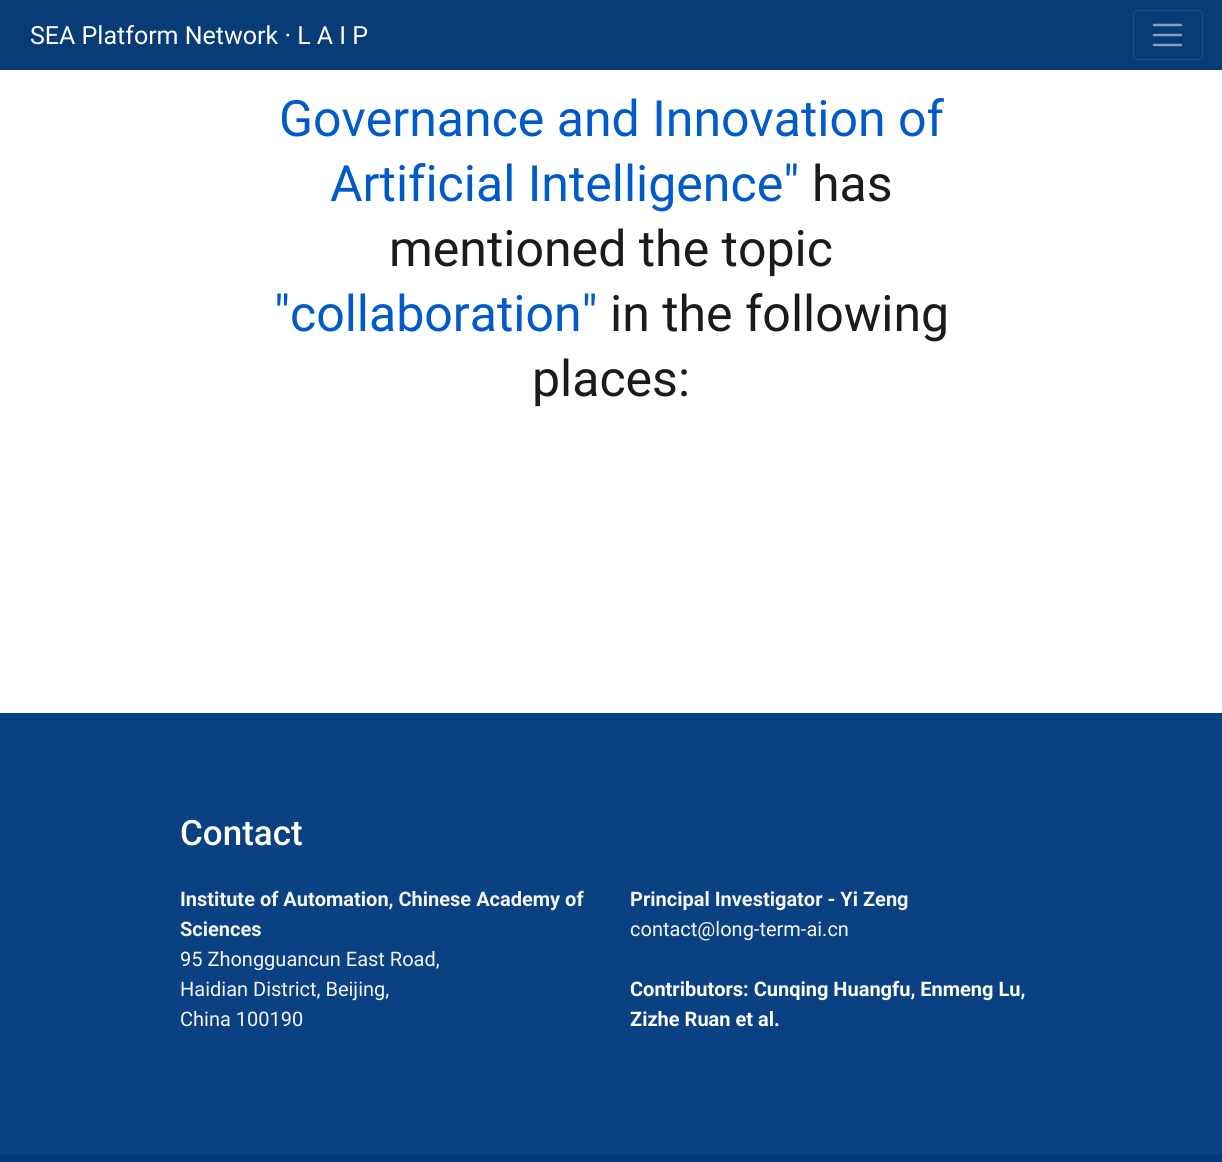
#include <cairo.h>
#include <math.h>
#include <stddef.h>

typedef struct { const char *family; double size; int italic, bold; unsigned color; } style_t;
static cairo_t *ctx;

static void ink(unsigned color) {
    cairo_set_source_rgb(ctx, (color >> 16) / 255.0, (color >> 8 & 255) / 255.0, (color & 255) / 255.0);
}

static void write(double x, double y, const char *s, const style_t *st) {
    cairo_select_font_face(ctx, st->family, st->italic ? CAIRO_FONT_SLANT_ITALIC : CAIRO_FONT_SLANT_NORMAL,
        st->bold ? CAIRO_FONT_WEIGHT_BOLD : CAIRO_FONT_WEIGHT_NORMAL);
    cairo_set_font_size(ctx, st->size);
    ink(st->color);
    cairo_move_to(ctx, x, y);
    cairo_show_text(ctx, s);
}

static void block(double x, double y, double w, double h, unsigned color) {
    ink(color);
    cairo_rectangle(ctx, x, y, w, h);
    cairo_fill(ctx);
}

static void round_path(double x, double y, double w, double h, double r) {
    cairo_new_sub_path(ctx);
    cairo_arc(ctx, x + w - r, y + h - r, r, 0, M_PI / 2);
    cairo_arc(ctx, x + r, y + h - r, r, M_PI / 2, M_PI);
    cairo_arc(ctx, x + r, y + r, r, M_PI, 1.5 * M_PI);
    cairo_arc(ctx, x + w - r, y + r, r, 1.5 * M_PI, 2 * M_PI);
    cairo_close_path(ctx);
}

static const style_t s1 = {"Roboto", 25, 0, 0, 0xffffff};
static const style_t s2 = {"Roboto", 50, 0, 0, 0x005aca};
static const style_t s3 = {"Roboto", 50, 0, 0, 0x1b1b1b};
static const style_t s4 = {"Roboto Medium", 35, 0, 0, 0xffffff};
static const style_t s5 = {"Roboto", 20, 0, 1, 0xf5f5f5};
static const style_t s6 = {"Roboto", 20, 0, 0, 0xf5f5f5};
static const style_t s7 = {"Roboto", 20, 0, 1, 0xffffff};

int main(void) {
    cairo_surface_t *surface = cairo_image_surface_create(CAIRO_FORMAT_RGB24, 1222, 1162);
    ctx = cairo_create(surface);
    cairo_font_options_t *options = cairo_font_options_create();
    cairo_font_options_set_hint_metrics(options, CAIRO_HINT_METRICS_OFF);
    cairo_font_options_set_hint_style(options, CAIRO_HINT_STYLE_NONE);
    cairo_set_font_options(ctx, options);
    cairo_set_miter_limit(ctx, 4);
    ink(0xffffff);
    cairo_paint(ctx);
    block(0, 0, 1222, 70, 0x083c77);
    write(30, 44, "SEA Platform Network · L A I P", &s1);
    round_path(1133.5, 10.5, 69, 49, 4.5);
    ink(0x215085);
    cairo_set_line_width(ctx, 1);
    cairo_stroke(ctx);
    cairo_new_path(ctx);
    cairo_move_to(ctx, 1154, 25);
    cairo_line_to(ctx, 1181, 25);
    cairo_move_to(ctx, 1154, 35);
    cairo_line_to(ctx, 1181, 35);
    cairo_move_to(ctx, 1154, 45);
    cairo_line_to(ctx, 1181, 45);
    ink(0x849ebb);
    cairo_set_line_width(ctx, 2.5);
    cairo_set_line_cap(ctx, CAIRO_LINE_CAP_ROUND);
    cairo_stroke(ctx);
    write(279, 136, "Governance and Innovation of", &s2);
    write(330, 201, "Artificial Intelligence\"", &s2);
    write(812, 201, "has", &s3);
    write(389, 266, "mentioned the topic", &s3);
    write(274, 331, "\"collaboration\"", &s2);
    write(610, 331, "in the following", &s3);
    write(532, 396, "places:", &s3);
    block(0, 713, 1222, 442, 0x094183);
    write(180, 845, "Contact", &s4);
    write(180, 906, "Institute of Automation, Chinese Academy of", &s5);
    write(180, 936, "Sciences", &s5);
    write(180, 966, "95 Zhongguancun East Road,", &s6);
    write(180, 996, "Haidian District, Beijing,", &s6);
    write(180, 1026, "China 100190", &s6);
    write(630, 906, "Principal Investigator - Yi Zeng", &s5);
    write(630, 936, "contact@long-term-ai.cn", &s6);
    write(630, 996, "Contributors: Cunqing Huangfu, Enmeng Lu,", &s7);
    write(630, 1026, "Zizhe Ruan et al.", &s7);
    block(0, 1155, 1222, 7, 0x033a7b);
    cairo_surface_write_to_png(surface, "screenshot.png");
    cairo_font_options_destroy(options);
    cairo_destroy(ctx);
    cairo_surface_destroy(surface);
    return 0;
}
